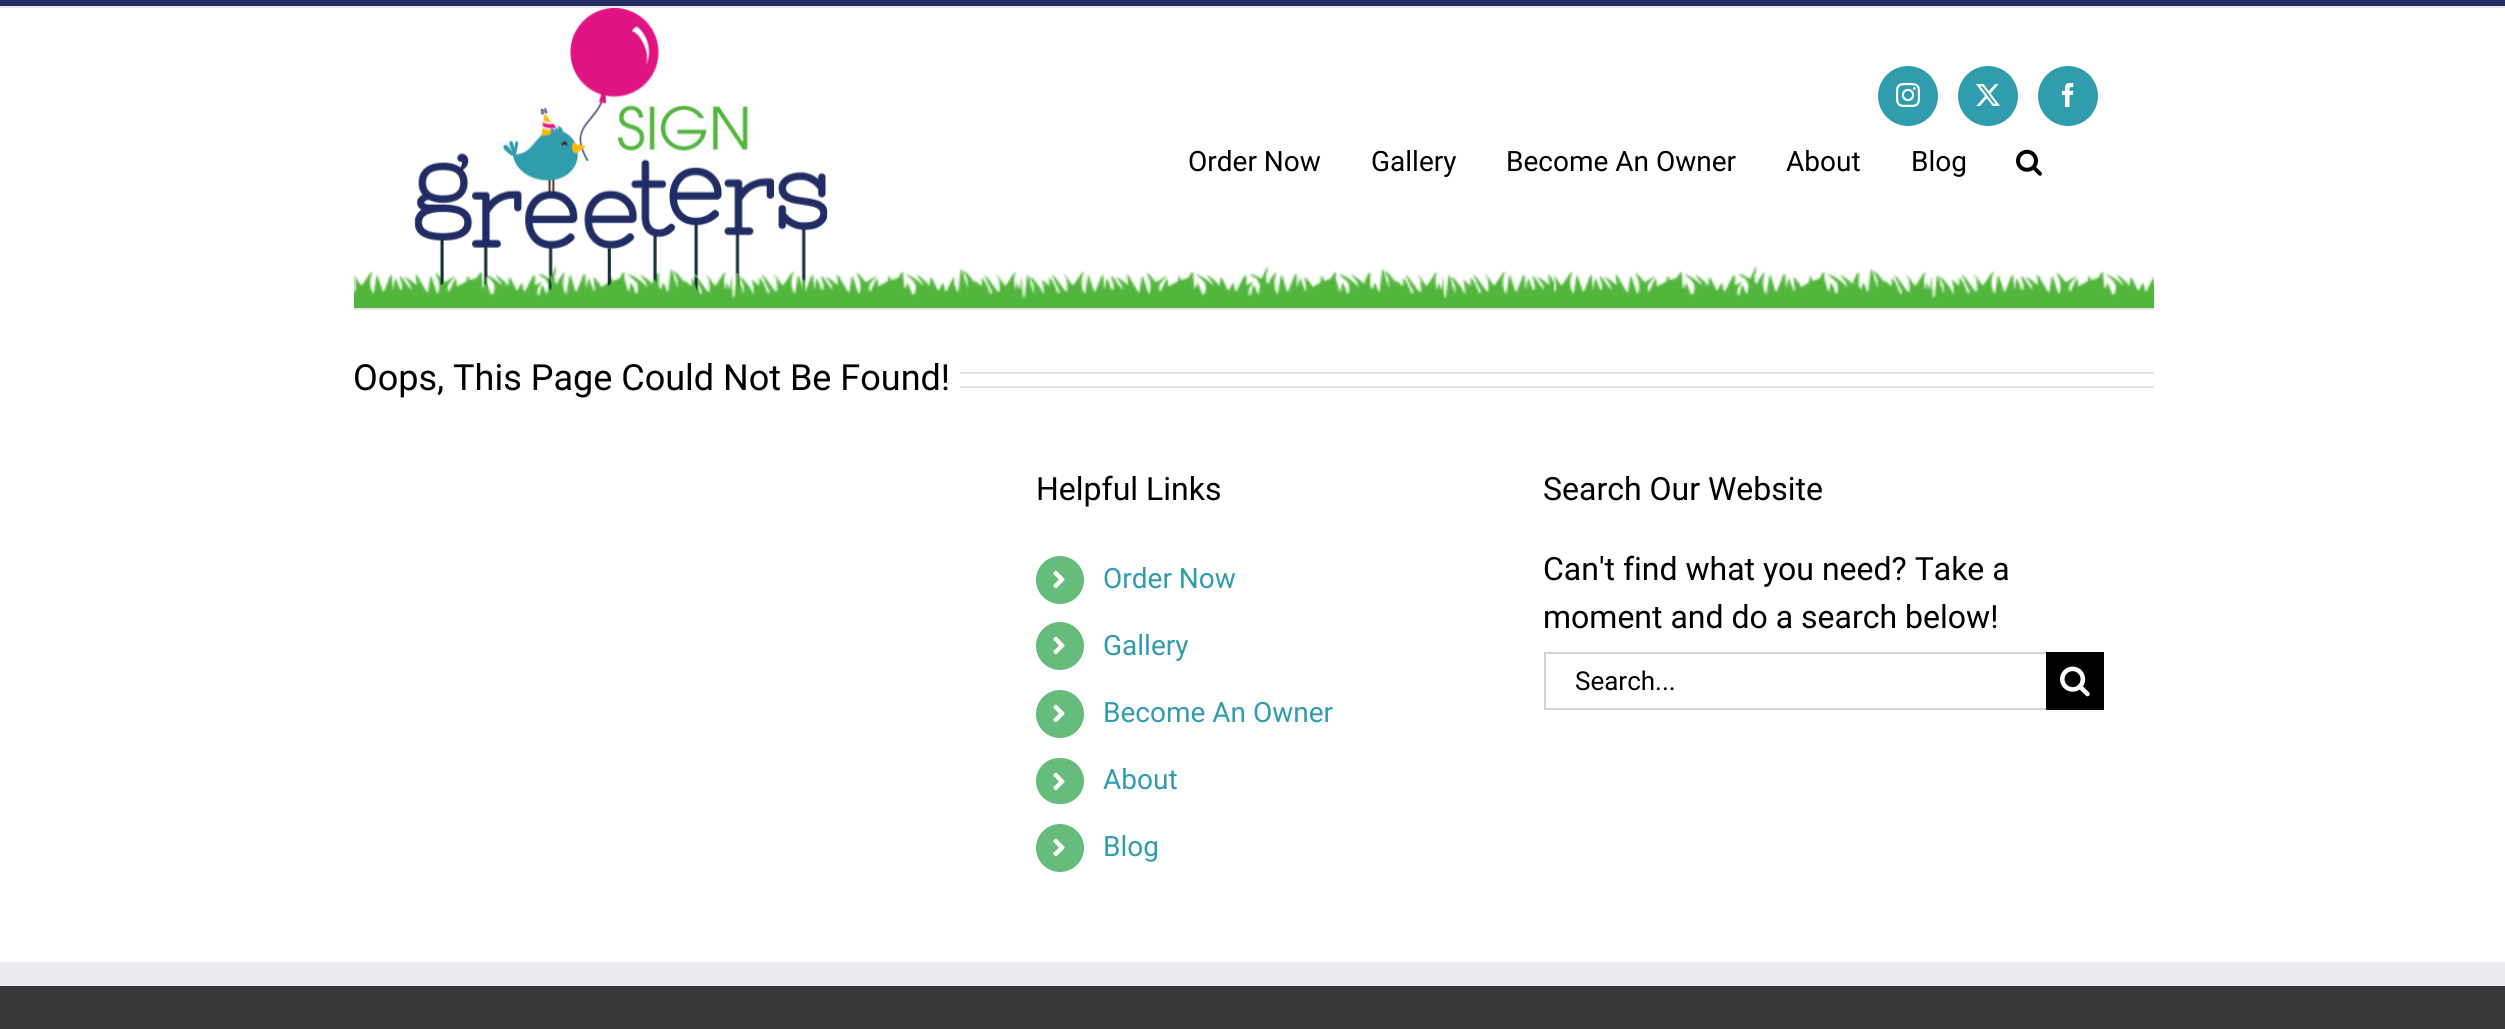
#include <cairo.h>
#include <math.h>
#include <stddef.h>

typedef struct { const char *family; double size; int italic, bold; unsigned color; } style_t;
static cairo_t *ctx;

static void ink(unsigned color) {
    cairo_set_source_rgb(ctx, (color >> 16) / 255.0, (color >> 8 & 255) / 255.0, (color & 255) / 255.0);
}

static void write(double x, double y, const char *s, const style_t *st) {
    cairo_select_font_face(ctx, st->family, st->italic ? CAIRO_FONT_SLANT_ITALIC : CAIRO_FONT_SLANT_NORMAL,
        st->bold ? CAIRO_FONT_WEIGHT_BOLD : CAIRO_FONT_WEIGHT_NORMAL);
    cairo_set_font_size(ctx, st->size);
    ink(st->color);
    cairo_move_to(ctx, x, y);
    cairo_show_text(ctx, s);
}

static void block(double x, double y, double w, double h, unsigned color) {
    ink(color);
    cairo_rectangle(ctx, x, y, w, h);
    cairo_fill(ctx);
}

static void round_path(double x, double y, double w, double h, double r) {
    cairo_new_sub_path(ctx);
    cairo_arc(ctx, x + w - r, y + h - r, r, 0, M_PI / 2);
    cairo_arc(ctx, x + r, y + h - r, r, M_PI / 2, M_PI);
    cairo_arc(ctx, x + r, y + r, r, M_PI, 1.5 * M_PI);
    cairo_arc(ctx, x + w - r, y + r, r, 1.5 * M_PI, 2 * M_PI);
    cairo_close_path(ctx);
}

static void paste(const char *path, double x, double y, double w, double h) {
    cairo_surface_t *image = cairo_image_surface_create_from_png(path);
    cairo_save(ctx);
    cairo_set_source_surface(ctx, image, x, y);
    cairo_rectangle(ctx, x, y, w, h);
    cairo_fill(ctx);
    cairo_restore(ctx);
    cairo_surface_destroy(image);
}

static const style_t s1 = {"Roboto", 28, 0, 0, 0x000000};
static const style_t s2 = {"Roboto", 36, 0, 0, 0x000000};
static const style_t s3 = {"Roboto", 32, 0, 0, 0x000000};
static const style_t s4 = {"Roboto", 28, 0, 0, 0x309dae};
static const style_t s5 = {"Roboto", 26, 0, 0, 0x000000};

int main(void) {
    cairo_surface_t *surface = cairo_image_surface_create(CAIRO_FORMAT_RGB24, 2505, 1029);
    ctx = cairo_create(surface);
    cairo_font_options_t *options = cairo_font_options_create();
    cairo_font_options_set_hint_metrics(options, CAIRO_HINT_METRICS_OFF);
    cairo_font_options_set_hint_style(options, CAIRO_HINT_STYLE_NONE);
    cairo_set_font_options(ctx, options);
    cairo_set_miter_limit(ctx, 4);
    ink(0xffffff);
    cairo_paint(ctx);
    block(0, 0, 2505, 6, 0x252c63);
    block(0, 6, 2505, 2, 0xe5e5e5);
    ink(0x309dae);
    cairo_arc(ctx, 1908, 96, 29, 0, 2 * M_PI);
    cairo_fill_preserve(ctx);
    cairo_stroke(ctx);
    paste("pic1.png", 1896, 83, 24, 24);
    cairo_arc(ctx, 1988, 96, 29, 0, 2 * M_PI);
    cairo_fill_preserve(ctx);
    cairo_stroke(ctx);
    paste("pic2.png", 1976, 84, 24, 22);
    cairo_arc(ctx, 2068, 96, 29, 0, 2 * M_PI);
    cairo_fill_preserve(ctx);
    cairo_stroke(ctx);
    paste("pic3.png", 2062, 83, 12, 24);
    paste("pic4.png", 354, 265, 1800, 43);
    block(354, 308, 1800, 2, 0xe5e5e5);
    paste("pic5.png", 414, 8, 414, 290);
    write(1188, 171, "Order Now", &s1);
    write(1371, 171, "Gallery", &s1);
    write(1506, 171, "Become An Owner", &s1);
    write(1786, 171, "About", &s1);
    write(1911, 171, "Blog", &s1);
    paste("pic6.png", 2016, 149, 26, 27);
    write(353, 390, "Oops, This Page Could Not Be Found!", &s2);
    block(960, 372, 1194, 2, 0xe0dede);
    block(960, 386, 1194, 2, 0xe0dede);
    write(1036, 500, "Helpful Links", &s3);
    ink(0x65bc7b);
    cairo_new_path(ctx);
    cairo_arc(ctx, 1060, 580, 24, 0, 2 * M_PI);
    cairo_fill(ctx);
    paste("pic7.png", 1053, 570, 12, 19);
    write(1103, 588, "Order Now", &s4);
    ink(0x65bc7b);
    cairo_new_path(ctx);
    cairo_arc(ctx, 1060, 646, 24, 0, 2 * M_PI);
    cairo_fill(ctx);
    paste("pic7.png", 1053, 636, 12, 19);
    write(1103, 655, "Gallery", &s4);
    ink(0x65bc7b);
    cairo_new_path(ctx);
    cairo_arc(ctx, 1060, 714, 24, 0, 2 * M_PI);
    cairo_fill(ctx);
    paste("pic7.png", 1053, 704, 12, 19);
    write(1103, 722, "Become An Owner", &s4);
    ink(0x65bc7b);
    round_path(1036, 758, 48, 46, 23);
    cairo_fill(ctx);
    paste("pic7.png", 1053, 772, 12, 19);
    write(1103, 789, "About", &s4);
    ink(0x65bc7b);
    cairo_new_path(ctx);
    cairo_arc(ctx, 1060, 848, 24, 0, 2 * M_PI);
    cairo_fill(ctx);
    paste("pic7.png", 1053, 838, 12, 19);
    write(1103, 856, "Blog", &s4);
    write(1543, 500, "Search Our Website", &s3);
    write(1543, 580, "Can't find what you need? Take a", &s3);
    write(1543, 628, "moment and do a search below!", &s3);
    block(1544, 652, 502, 2, 0xd2d2d2);
    block(1544, 708, 502, 2, 0xd2d2d2);
    block(1544, 652, 2, 58, 0xd2d2d2);
    write(1575, 690, "Search...", &s5);
    block(2046, 652, 58, 58, 0x000000);
    paste("pic8.png", 2060, 666, 30, 31);
    block(0, 986, 2505, 43, 0x363839);
    block(0, 962, 2505, 24, 0xe9eaee);
    cairo_surface_write_to_png(surface, "screenshot.png");
    cairo_font_options_destroy(options);
    cairo_destroy(ctx);
    cairo_surface_destroy(surface);
    return 0;
}
